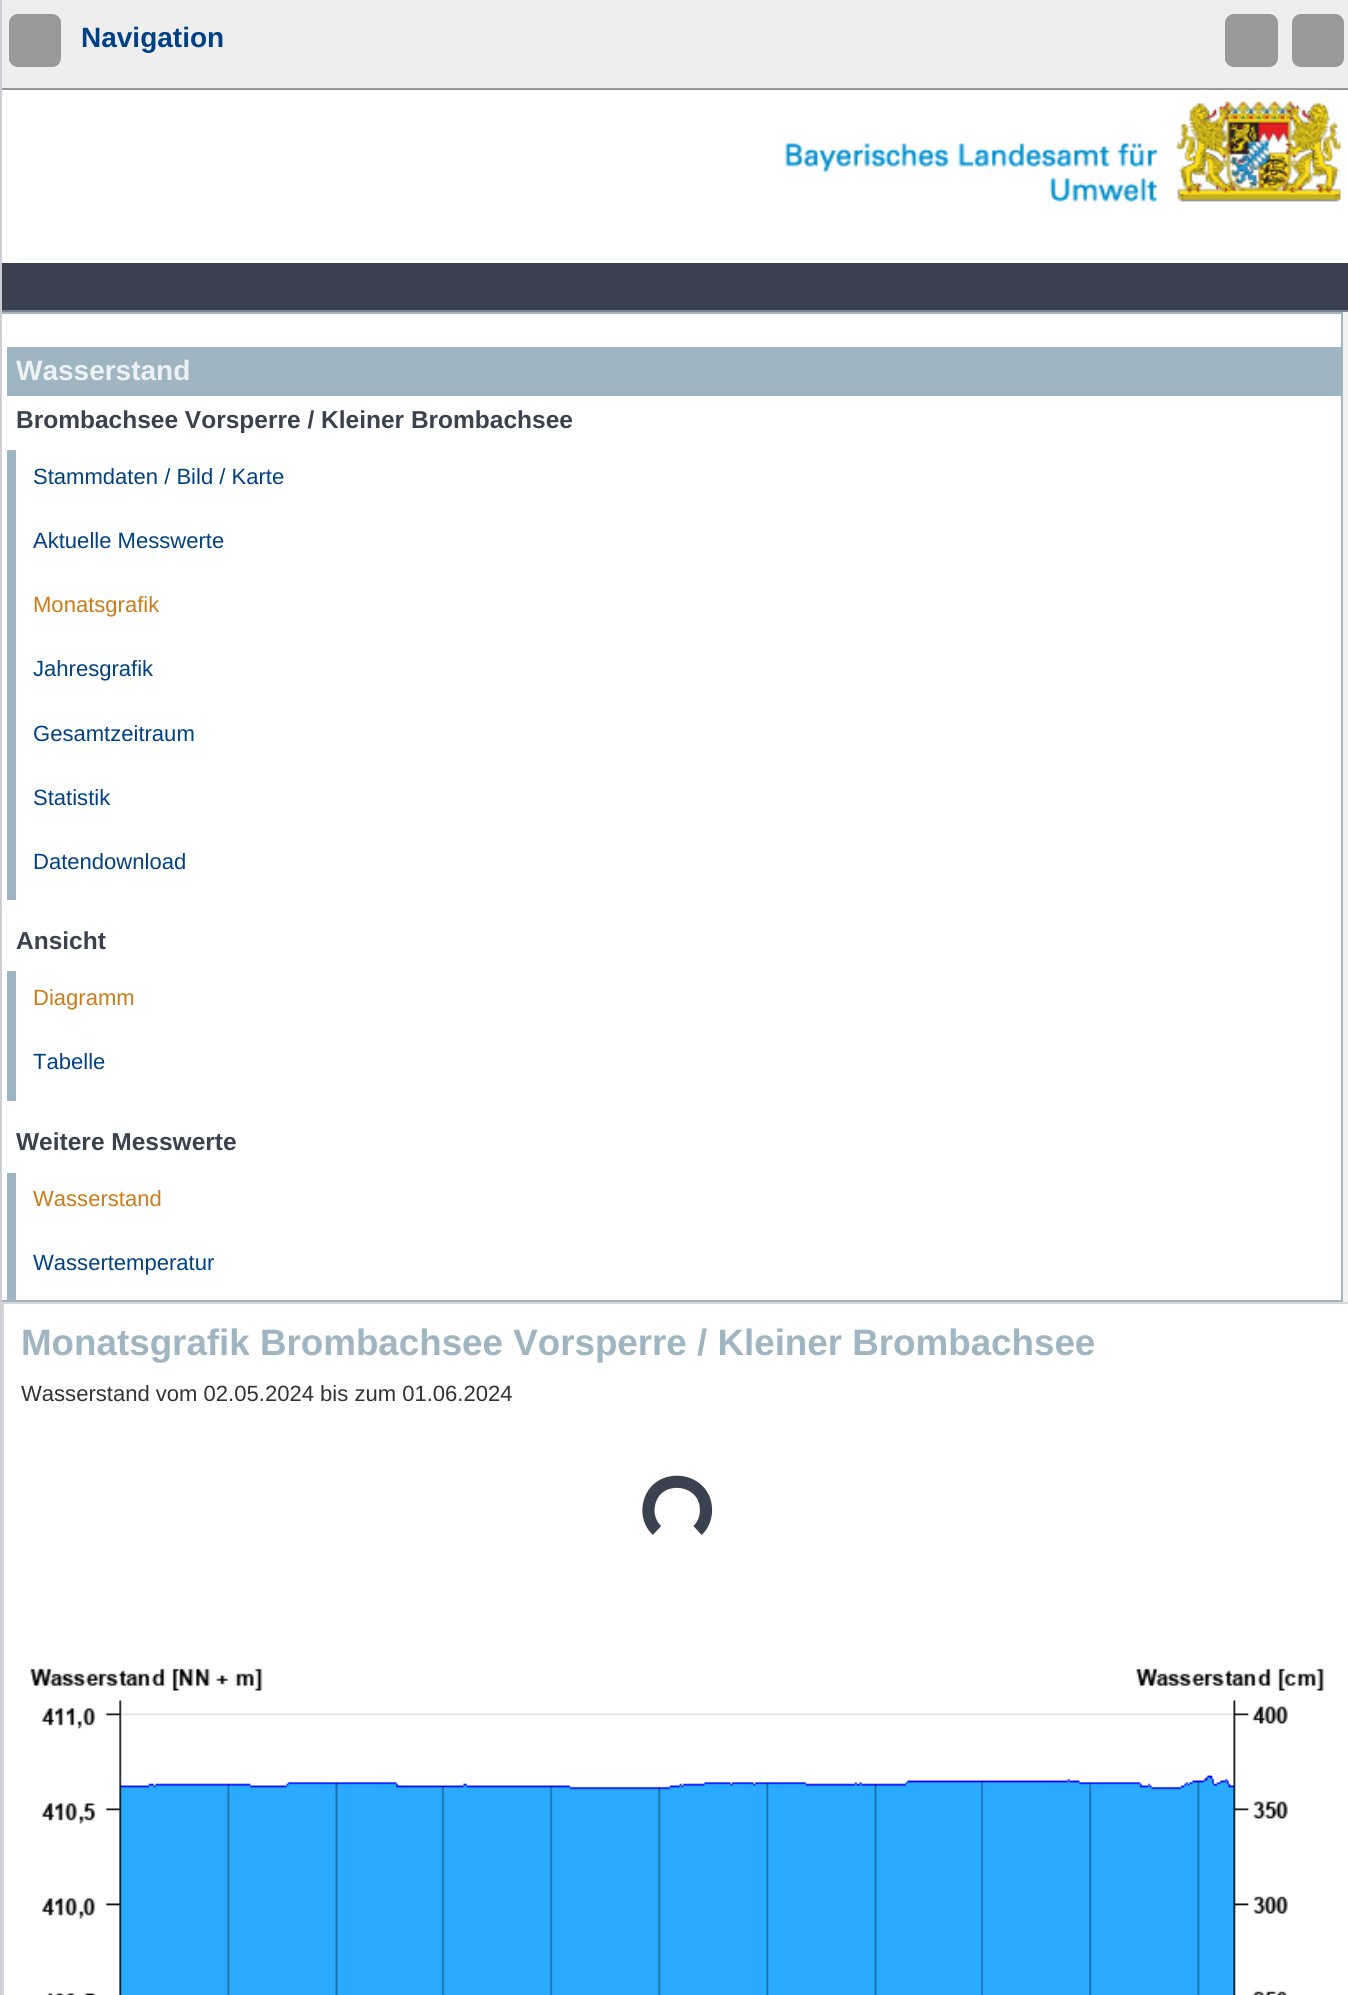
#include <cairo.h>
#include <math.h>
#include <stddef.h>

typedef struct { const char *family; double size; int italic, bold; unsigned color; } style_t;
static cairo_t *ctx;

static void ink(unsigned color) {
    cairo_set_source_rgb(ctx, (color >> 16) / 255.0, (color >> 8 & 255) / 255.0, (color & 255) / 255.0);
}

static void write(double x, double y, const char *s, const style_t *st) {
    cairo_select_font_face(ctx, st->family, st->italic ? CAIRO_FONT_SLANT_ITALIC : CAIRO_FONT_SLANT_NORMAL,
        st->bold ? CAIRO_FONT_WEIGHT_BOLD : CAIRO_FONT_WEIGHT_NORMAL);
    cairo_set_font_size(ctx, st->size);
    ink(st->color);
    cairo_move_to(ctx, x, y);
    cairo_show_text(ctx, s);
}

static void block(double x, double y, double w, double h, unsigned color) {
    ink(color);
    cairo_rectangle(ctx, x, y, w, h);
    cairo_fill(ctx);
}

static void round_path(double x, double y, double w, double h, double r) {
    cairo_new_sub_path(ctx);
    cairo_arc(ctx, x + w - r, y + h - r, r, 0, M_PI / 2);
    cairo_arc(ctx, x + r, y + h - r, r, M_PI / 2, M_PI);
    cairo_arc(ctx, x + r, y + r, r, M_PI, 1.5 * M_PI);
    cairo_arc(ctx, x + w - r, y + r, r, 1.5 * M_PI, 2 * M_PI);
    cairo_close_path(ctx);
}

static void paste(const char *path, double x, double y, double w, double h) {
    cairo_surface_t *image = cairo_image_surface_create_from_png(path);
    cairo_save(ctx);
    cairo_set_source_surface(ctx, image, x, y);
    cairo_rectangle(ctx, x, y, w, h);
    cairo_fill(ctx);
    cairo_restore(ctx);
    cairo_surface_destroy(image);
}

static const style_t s1 = {"Liberation Sans", 28, 0, 1, 0x004185};
static const style_t s2 = {"Liberation Sans", 28, 0, 1, 0xedf1f3};
static const style_t s3 = {"Liberation Sans", 24.5, 0, 1, 0x3b424f};
static const style_t s4 = {"Liberation Sans", 22.05, 0, 0, 0x004185};
static const style_t s5 = {"Liberation Sans", 22.05, 0, 0, 0xcc7b17};
static const style_t s6 = {"Liberation Sans", 36.75, 0, 1, 0x9fb5c1};
static const style_t s7 = {"Liberation Sans", 22.05, 0, 0, 0x333333};

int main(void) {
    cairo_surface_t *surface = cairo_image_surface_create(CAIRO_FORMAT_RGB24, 1348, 1995);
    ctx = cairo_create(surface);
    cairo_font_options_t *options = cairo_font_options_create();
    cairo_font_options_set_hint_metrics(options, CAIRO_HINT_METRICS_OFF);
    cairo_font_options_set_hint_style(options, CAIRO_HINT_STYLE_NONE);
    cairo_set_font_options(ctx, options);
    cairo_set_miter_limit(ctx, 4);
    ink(0xffffff);
    cairo_paint(ctx);
    block(0, 0, 2, 1995, 0xcecfd4);
    block(2, 0, 1346, 88, 0xeeeeee);
    block(2, 88, 1346, 2, 0x999999);
    round_path(9, 14, 52, 53, 9);
    cairo_fill(ctx);
    write(81, 47, "Navigation", &s1);
    ink(0x999999);
    round_path(1225, 14, 53, 53, 9);
    cairo_fill(ctx);
    round_path(1292, 14, 52, 53, 9);
    cairo_fill(ctx);
    paste("pic1.png", 785, 101, 556, 101);
    block(2, 263, 1346, 47, 0x3b424f);
    block(2, 310, 1346, 2, 0x7a8291);
    block(1343, 312, 5, 990, 0xf2f2f2);
    block(2, 312, 1340, 2, 0x9fb5c1);
    block(1341, 312, 2, 990, 0x9fb5c1);
    block(2, 1300, 1340, 2, 0x9fb5c1);
    block(7, 347, 1334, 49, 0x9fb5c1);
    write(16, 380, "Wasserstand", &s2);
    write(16, 428, "Brombachsee Vorsperre / Kleiner Brombachsee", &s3);
    block(7, 450, 9, 450, 0x9fb5c1);
    write(33, 484, "Stammdaten / Bild / Karte", &s4);
    write(33, 548, "Aktuelle Messwerte", &s4);
    write(33, 612, "Monatsgrafik", &s5);
    write(33, 676, "Jahresgrafik", &s4);
    write(33, 741, "Gesamtzeitraum", &s4);
    write(33, 805, "Statistik", &s4);
    write(33, 869, "Datendownload", &s4);
    write(16, 949, "Ansicht", &s3);
    block(7, 971, 9, 130, 0x9fb5c1);
    write(33, 1005, "Diagramm", &s5);
    write(33, 1069, "Tabelle", &s4);
    write(16, 1150, "Weitere Messwerte", &s3);
    block(7, 1173, 9, 127, 0x9fb5c1);
    write(33, 1206, "Wasserstand", &s5);
    write(33, 1270, "Wassertemperatur", &s4);
    cairo_rectangle(ctx, 3, 1303, 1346, 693);
    ink(0xd7d7d7);
    cairo_stroke(ctx);
    write(21, 1355, "Monatsgrafik Brombachsee Vorsperre / Kleiner Brombachsee", &s6);
    write(21, 1401, "Wasserstand vom 02.05.2024 bis zum 01.06.2024", &s7);
    cairo_new_path(ctx);
    cairo_move_to(ctx, 657, 1530.5);
    cairo_curve_to(ctx, 650, 1524, 647, 1514, 649, 1504.5);
    cairo_curve_to(ctx, 655.5, 1471, 706, 1476, 706, 1510);
    cairo_curve_to(ctx, 706, 1518, 703, 1525.5, 697.5, 1530.5);
    ink(0x3b424f);
    cairo_set_line_width(ctx, 12.2);
    cairo_stroke(ctx);
    paste("pic2.png", 30, 1668, 1294, 327);
    cairo_surface_write_to_png(surface, "screenshot.png");
    cairo_font_options_destroy(options);
    cairo_destroy(ctx);
    cairo_surface_destroy(surface);
    return 0;
}
